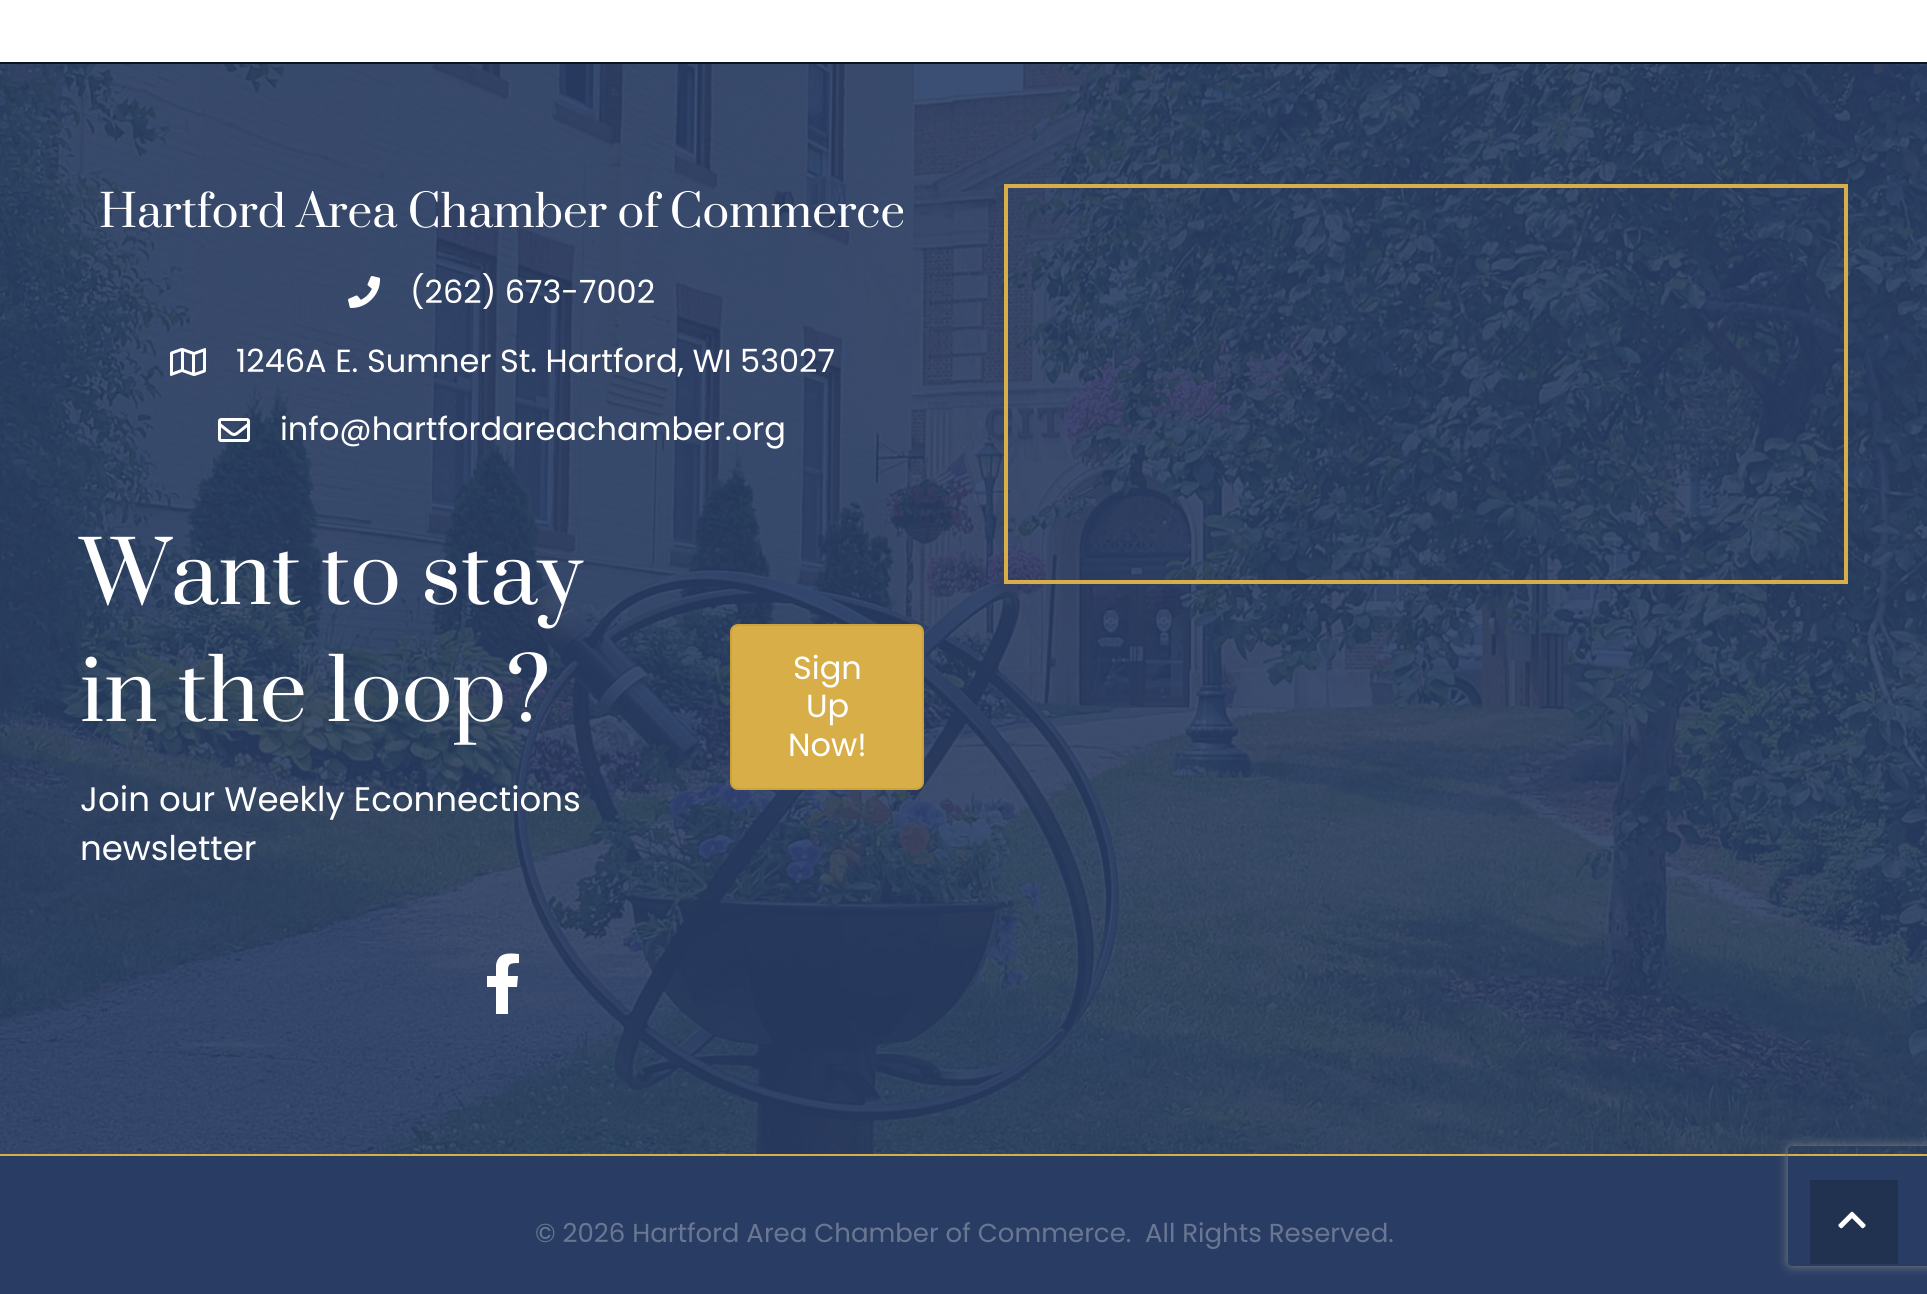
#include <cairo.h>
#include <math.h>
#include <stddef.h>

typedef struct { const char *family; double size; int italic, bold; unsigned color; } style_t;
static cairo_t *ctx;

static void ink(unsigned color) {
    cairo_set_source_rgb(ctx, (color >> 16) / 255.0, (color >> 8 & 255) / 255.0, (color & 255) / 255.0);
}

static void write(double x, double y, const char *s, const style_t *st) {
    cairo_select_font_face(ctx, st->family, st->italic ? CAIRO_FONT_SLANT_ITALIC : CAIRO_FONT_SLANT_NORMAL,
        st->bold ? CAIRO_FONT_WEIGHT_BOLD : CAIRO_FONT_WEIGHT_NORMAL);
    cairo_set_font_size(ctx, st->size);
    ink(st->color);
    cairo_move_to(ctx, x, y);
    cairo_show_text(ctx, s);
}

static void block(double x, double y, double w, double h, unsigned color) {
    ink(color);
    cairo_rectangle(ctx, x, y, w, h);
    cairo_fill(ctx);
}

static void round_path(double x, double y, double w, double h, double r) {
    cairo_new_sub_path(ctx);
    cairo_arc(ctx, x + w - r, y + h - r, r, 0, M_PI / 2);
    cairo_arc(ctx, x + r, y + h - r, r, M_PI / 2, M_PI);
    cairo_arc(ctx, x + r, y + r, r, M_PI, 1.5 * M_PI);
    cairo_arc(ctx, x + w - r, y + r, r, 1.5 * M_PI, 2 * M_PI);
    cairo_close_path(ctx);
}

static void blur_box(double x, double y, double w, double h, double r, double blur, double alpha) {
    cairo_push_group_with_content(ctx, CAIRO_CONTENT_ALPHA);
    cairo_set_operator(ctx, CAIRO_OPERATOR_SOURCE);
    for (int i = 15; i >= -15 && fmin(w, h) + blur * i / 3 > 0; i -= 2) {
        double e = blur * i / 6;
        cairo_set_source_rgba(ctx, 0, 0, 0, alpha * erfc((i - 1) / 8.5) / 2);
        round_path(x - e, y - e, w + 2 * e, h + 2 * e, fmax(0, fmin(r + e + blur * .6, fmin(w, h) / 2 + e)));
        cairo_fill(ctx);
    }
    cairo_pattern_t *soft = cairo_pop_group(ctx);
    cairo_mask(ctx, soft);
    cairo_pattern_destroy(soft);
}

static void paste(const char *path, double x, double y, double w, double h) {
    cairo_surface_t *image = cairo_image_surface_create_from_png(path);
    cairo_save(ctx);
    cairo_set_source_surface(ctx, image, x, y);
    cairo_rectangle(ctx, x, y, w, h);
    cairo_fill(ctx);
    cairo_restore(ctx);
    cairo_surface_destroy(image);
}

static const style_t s1 = {"Prata", 44, 0, 0, 0xffffff};
static const style_t s2 = {"Poppins", 32, 0, 0, 0xffffff};
static const style_t s3 = {"Prata", 84, 0, 0, 0xffffff};
static const style_t s4 = {"Poppins", 34, 0, 0, 0xffffff};
static const style_t s5 = {"Poppins", 26, 0, 0, 0x697793};

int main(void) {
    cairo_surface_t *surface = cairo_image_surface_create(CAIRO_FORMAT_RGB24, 1927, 1294);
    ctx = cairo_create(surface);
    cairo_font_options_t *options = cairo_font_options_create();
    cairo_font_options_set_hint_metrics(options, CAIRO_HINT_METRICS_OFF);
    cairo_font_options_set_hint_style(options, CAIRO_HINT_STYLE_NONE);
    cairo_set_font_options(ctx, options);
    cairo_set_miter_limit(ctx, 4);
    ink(0xffffff);
    cairo_paint(ctx);
    paste("pic1.png", 0, 64, 1927, 1090);
    block(0, 62, 1927, 2, 0x051622);
    write(99, 227, "Hartford Area Chamber of Commerce", &s1);
    paste("pic2.png", 348, 276, 33, 32);
    write(410, 303, "(262) 673-7002", &s2);
    paste("pic3.png", 170, 348, 36, 28);
    write(236, 372, "1246A E. Sumner St. Hartford, WI 53027", &s2);
    paste("pic4.png", 218, 418, 32, 24);
    write(280, 440, "info@hartfordareachamber.org", &s2);
    write(80, 604, "Want to stay", &s3);
    write(80, 721, "in the loop?", &s3);
    write(80, 811, "Join our Weekly Econnections", &s4);
    write(80, 860, "newsletter", &s4);
    ink(0xd8ae48);
    round_path(731, 625, 192, 164, 7);
    cairo_fill_preserve(ctx);
    ink(0xcca23c);
    cairo_stroke(ctx);
    write(793, 679, "Sign", &s2);
    write(806, 717, "Up", &s2);
    write(788, 756, "Now!", &s2);
    cairo_new_path(ctx);
    cairo_move_to(ctx, 517, 987);
    cairo_line_to(ctx, 508, 987);
    cairo_line_to(ctx, 508, 1014);
    cairo_line_to(ctx, 496, 1014);
    cairo_line_to(ctx, 496, 987);
    cairo_line_to(ctx, 487, 987);
    cairo_line_to(ctx, 487, 976);
    cairo_line_to(ctx, 496, 976);
    cairo_line_to(ctx, 496, 965);
    cairo_curve_to(ctx, 498, 952, 509, 953, 519, 954);
    cairo_line_to(ctx, 519, 963);
    cairo_curve_to(ctx, 507, 963, 508, 965, 508, 976);
    cairo_line_to(ctx, 518, 976);
    cairo_close_path(ctx);
    cairo_fill(ctx);
    cairo_rectangle(ctx, 1006, 186, 840, 396);
    ink(0xd8ae48);
    cairo_set_line_width(ctx, 4);
    cairo_stroke(ctx);
    block(0, 1156, 1927, 138, 0x293d64);
    block(0, 1154, 1927, 2, 0xd8ae48);
    write(535, 1242, "© 2026 Hartford Area Chamber of Commerce.", &s5);
    write(1145, 1242, "All Rights Reserved.", &s5);
    cairo_save(ctx);
    cairo_set_fill_rule(ctx, CAIRO_FILL_RULE_EVEN_ODD);
    cairo_new_path(ctx);
    cairo_move_to(ctx, 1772, 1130);
    cairo_line_to(ctx, 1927, 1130);
    cairo_line_to(ctx, 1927, 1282);
    cairo_line_to(ctx, 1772, 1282);
    cairo_close_path(ctx);
    cairo_move_to(ctx, 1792, 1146);
    cairo_line_to(ctx, 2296, 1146);
    cairo_curve_to(ctx, 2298, 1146, 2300, 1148, 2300, 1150);
    cairo_line_to(ctx, 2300, 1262);
    cairo_curve_to(ctx, 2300, 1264, 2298, 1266, 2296, 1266);
    cairo_line_to(ctx, 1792, 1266);
    cairo_curve_to(ctx, 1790, 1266, 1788, 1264, 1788, 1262);
    cairo_line_to(ctx, 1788, 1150);
    cairo_curve_to(ctx, 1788, 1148, 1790, 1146, 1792, 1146);
    cairo_close_path(ctx);
    cairo_clip(ctx);
    ink(0x808080);
    blur_box(1788, 1146, 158, 120, 4, 5, 1);
    cairo_restore(ctx);
    block(1810, 1180, 88, 84, 0x213150);
    paste("pic5.png", 1838, 1211, 28, 18);
    cairo_surface_write_to_png(surface, "screenshot.png");
    cairo_font_options_destroy(options);
    cairo_destroy(ctx);
    cairo_surface_destroy(surface);
    return 0;
}
